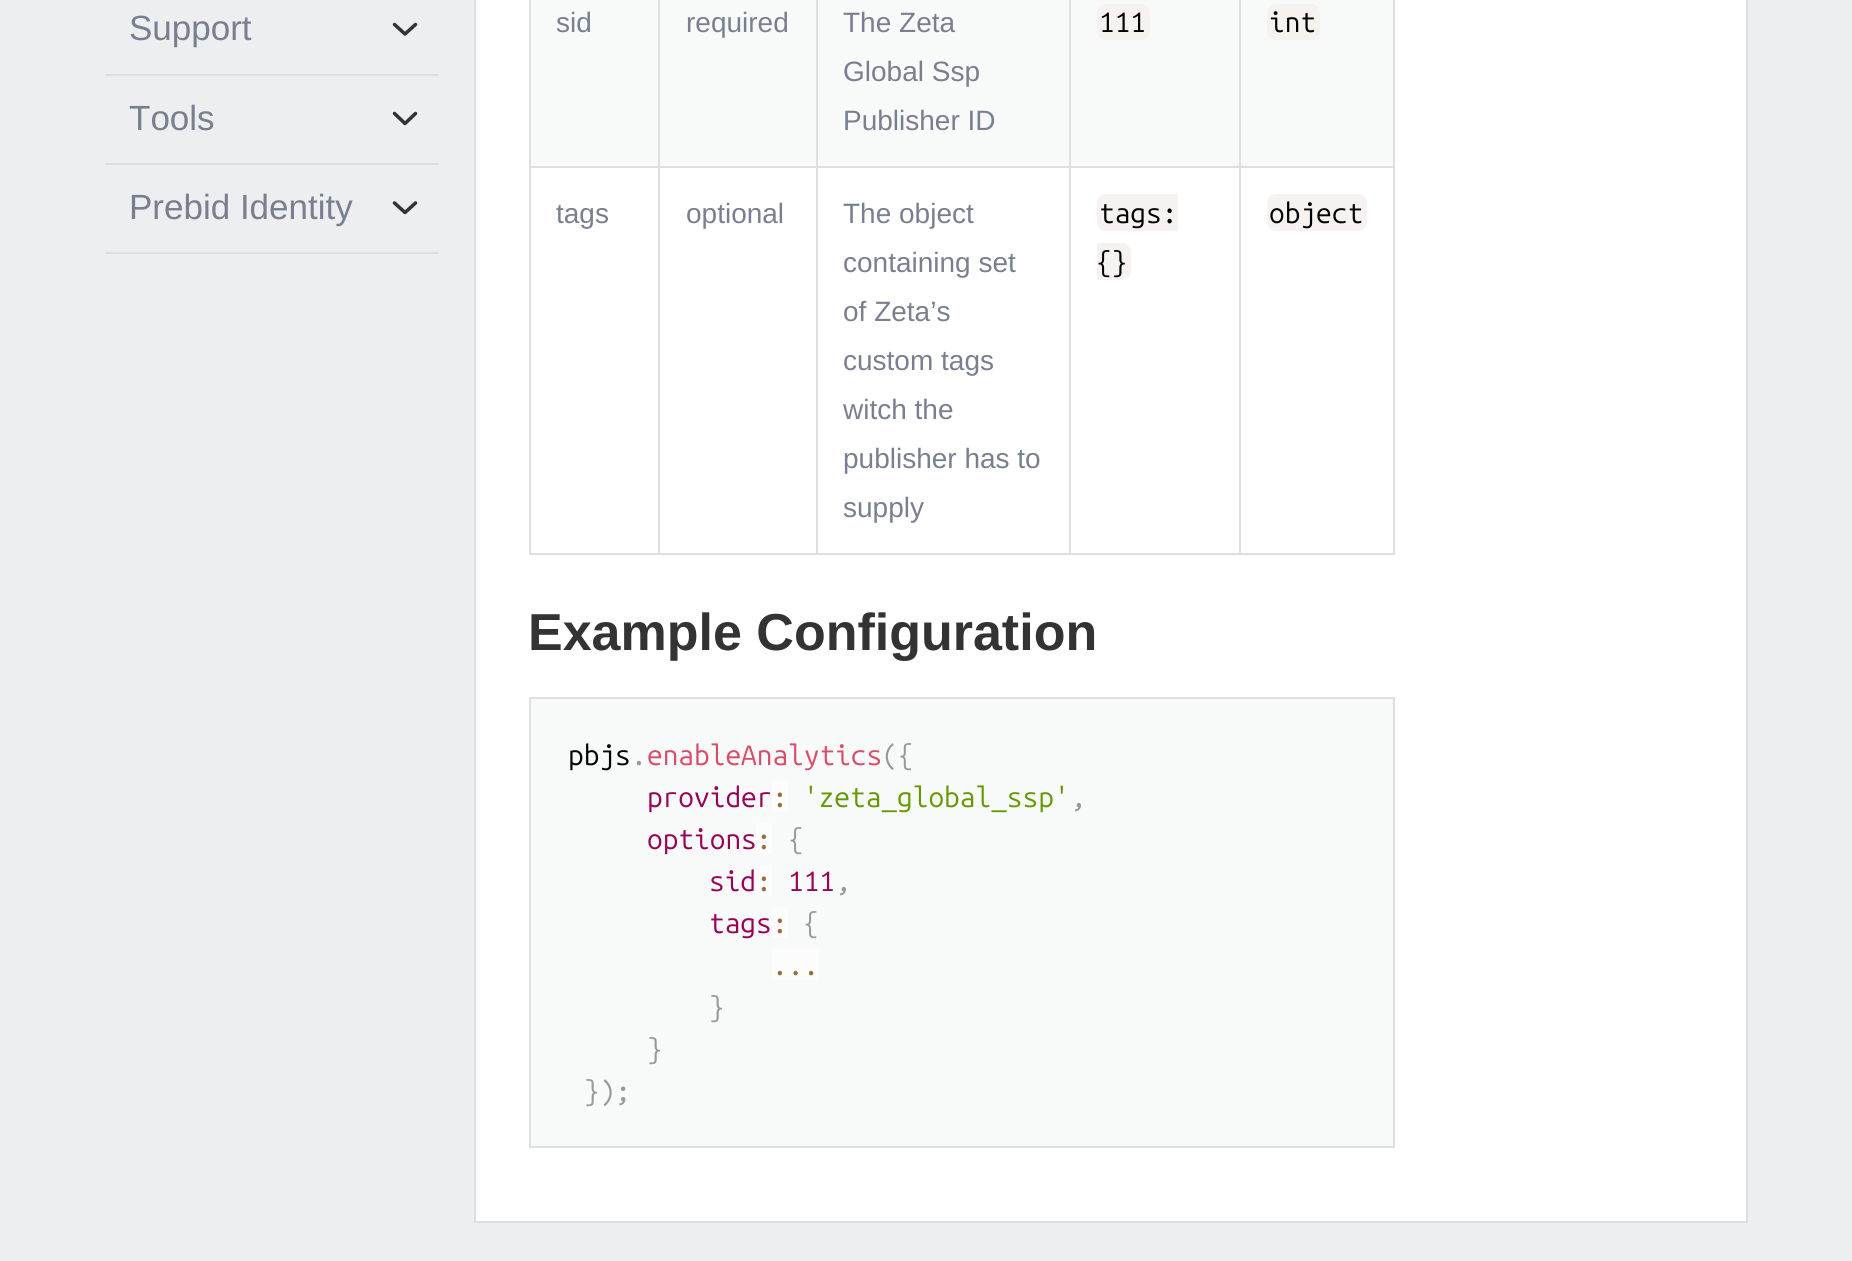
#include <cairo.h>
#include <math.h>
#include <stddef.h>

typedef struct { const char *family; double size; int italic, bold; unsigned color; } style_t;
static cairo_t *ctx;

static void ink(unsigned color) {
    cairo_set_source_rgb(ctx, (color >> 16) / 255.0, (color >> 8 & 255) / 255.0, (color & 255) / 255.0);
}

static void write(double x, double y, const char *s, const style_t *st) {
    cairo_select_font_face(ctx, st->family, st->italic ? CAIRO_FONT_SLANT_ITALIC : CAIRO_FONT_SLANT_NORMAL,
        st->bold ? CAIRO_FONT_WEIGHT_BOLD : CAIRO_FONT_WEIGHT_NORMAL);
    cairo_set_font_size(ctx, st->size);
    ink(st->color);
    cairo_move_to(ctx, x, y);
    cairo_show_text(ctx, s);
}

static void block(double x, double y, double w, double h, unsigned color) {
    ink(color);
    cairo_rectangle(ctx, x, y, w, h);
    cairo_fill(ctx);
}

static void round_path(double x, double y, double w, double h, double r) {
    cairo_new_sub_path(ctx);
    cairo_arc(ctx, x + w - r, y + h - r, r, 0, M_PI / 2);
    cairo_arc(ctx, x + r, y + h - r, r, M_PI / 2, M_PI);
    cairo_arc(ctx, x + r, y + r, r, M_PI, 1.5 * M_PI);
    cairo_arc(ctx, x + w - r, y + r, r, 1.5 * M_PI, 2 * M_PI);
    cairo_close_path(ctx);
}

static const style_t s1 = {"Liberation Sans", 35, 0, 0, 0x797f90};
static const style_t s2 = {"Liberation Sans", 28, 0, 0, 0x797f90};
static const style_t s3 = {"Ubuntu Mono", 28, 0, 0, 0x000000};
static const style_t s4 = {"Liberation Sans", 52, 0, 1, 0x333333};
static const style_t s5 = {"Ubuntu Mono", 28, 0, 0, 0x999999};
static const style_t s6 = {"Ubuntu Mono", 28, 0, 0, 0xdd4a68};
static const style_t s7 = {"Ubuntu Mono", 28, 0, 0, 0x990055};
static const style_t s8 = {"Ubuntu Mono", 28, 0, 0, 0x9a6e3a};
static const style_t s9 = {"Ubuntu Mono", 28, 0, 0, 0x669900};

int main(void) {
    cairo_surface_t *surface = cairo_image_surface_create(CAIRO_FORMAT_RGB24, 1852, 1261);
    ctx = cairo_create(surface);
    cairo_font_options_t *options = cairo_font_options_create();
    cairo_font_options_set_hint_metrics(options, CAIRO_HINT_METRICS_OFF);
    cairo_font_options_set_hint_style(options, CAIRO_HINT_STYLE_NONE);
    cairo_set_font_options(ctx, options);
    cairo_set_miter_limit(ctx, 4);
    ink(0xeceeef);
    cairo_paint(ctx);
    write(129, 40, "Support", &s1);
    cairo_new_path(ctx);
    cairo_move_to(ctx, 394.5, 24.5);
    cairo_line_to(ctx, 405, 34);
    cairo_line_to(ctx, 415.5, 24.5);
    ink(0x333333);
    cairo_set_line_width(ctx, 3.5);
    cairo_set_line_cap(ctx, CAIRO_LINE_CAP_ROUND);
    cairo_set_line_join(ctx, CAIRO_LINE_JOIN_ROUND);
    cairo_stroke(ctx);
    block(105, 74, 334, 2, 0xdddfe3);
    write(129, 130, "Tools", &s1);
    cairo_new_path(ctx);
    cairo_move_to(ctx, 394.5, 113.5);
    cairo_line_to(ctx, 405, 123.5);
    cairo_line_to(ctx, 415.5, 113.5);
    ink(0x333333);
    cairo_stroke(ctx);
    block(105, 163, 334, 2, 0xdddfe3);
    block(105, 252, 334, 2, 0xdddfe3);
    write(129, 219, "Prebid Identity", &s1);
    cairo_new_path(ctx);
    cairo_move_to(ctx, 394.5, 203);
    cairo_line_to(ctx, 405, 212.5);
    cairo_line_to(ctx, 415.5, 203);
    ink(0x333333);
    cairo_stroke(ctx);
    ink(0xffffff);
    cairo_rectangle(ctx, 475, -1, 1272, 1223);
    cairo_fill_preserve(ctx);
    ink(0xdddfe3);
    cairo_set_line_width(ctx, 2);
    cairo_set_line_cap(ctx, CAIRO_LINE_CAP_BUTT);
    cairo_set_line_join(ctx, CAIRO_LINE_JOIN_MITER);
    cairo_stroke(ctx);
    block(1393, 0, 2, 555, 0xdddfe3);
    block(529, 553, 866, 2, 0xdddfe3);
    block(529, 0, 2, 555, 0xdddfe3);
    block(531, 0, 862, 166, 0xf8f9f9);
    write(556, 32, "sid", &s2);
    block(1239, 166, 156, 2, 0xdddfe3);
    block(1239, 166, 2, 389, 0xdddfe3);
    block(1069, 166, 172, 2, 0xdddfe3);
    block(1069, 166, 2, 389, 0xdddfe3);
    block(816, 166, 255, 2, 0xdddfe3);
    block(816, 166, 2, 389, 0xdddfe3);
    block(658, 166, 159, 2, 0xdddfe3);
    block(658, 166, 2, 389, 0xdddfe3);
    block(529, 166, 131, 2, 0xdddfe3);
    block(658, 0, 2, 168, 0xdddfe3);
    write(686, 32, "required", &s2);
    block(816, 0, 2, 168, 0xdddfe3);
    write(843, 32, "The Zeta", &s2);
    write(843, 81, "Global Ssp", &s2);
    write(843, 130, "Publisher ID", &s2);
    block(1069, 0, 2, 168, 0xdddfe3);
    ink(0xf5f2f0);
    round_path(1097, 4, 53, 36, 9);
    cairo_fill(ctx);
    write(1099, 32, "111", &s3);
    block(1239, 0, 2, 168, 0xdddfe3);
    ink(0xf5f2f0);
    round_path(1267, 4, 53, 36, 9);
    cairo_fill(ctx);
    write(1269, 32, "int", &s3);
    write(556, 223, "tags", &s2);
    write(686, 223, "optional", &s2);
    write(843, 223, "The object", &s2);
    write(843, 272, "containing set", &s2);
    write(843, 321, "of Zeta’s", &s2);
    write(843, 370, "custom tags", &s2);
    write(843, 419, "witch the", &s2);
    write(843, 468, "publisher has to", &s2);
    write(843, 517, "supply", &s2);
    ink(0xf5f2f0);
    cairo_new_path(ctx);
    cairo_move_to(ctx, 1106, 194);
    cairo_line_to(ctx, 1178, 194);
    cairo_line_to(ctx, 1178, 231);
    cairo_line_to(ctx, 1106, 231);
    cairo_curve_to(ctx, 1101, 231, 1097, 227, 1097, 222);
    cairo_line_to(ctx, 1097, 203);
    cairo_curve_to(ctx, 1097, 198, 1101, 194, 1106, 194);
    cairo_close_path(ctx);
    cairo_fill(ctx);
    write(1099, 223, "tags:", &s3);
    ink(0xf5f2f0);
    cairo_new_path(ctx);
    cairo_move_to(ctx, 1097, 243);
    cairo_line_to(ctx, 1122, 243);
    cairo_curve_to(ctx, 1127, 243, 1131, 247, 1131, 252);
    cairo_line_to(ctx, 1131, 271);
    cairo_curve_to(ctx, 1131, 276, 1127, 280, 1122, 280);
    cairo_line_to(ctx, 1097, 280);
    cairo_close_path(ctx);
    cairo_fill(ctx);
    write(1096, 272, "{}", &s3);
    ink(0xf5f2f0);
    round_path(1267, 194, 100, 37, 9);
    cairo_fill(ctx);
    write(1269, 223, "object", &s3);
    write(528, 650, "Example Configuration", &s4);
    ink(0xf8f9f9);
    cairo_rectangle(ctx, 530, 698, 864, 449);
    cairo_fill_preserve(ctx);
    ink(0xdddfe3);
    cairo_stroke(ctx);
    write(568, 765, "pbjs", &s3);
    write(631, 765, ".", &s5);
    write(647, 765, "enableAnalytics", &s6);
    write(882, 765, "({", &s5);
    write(647, 807, "provider", &s7);
    block(772, 781, 16, 31, 0xfcfcfc);
    write(772, 807, ":", &s8);
    write(803, 807, "'zeta_global_ssp'", &s9);
    write(1070, 807, ",", &s5);
    write(647, 849, "options", &s7);
    block(756, 823, 16, 31, 0xfcfcfc);
    write(756, 849, ":", &s8);
    write(788, 849, "{", &s5);
    write(709, 891, "sid", &s7);
    block(756, 865, 16, 31, 0xfcfcfc);
    write(756, 891, ":", &s8);
    write(788, 891, "111", &s7);
    write(835, 891, ",", &s5);
    write(709, 933, "tags", &s7);
    block(772, 907, 16, 31, 0xfcfcfc);
    write(772, 933, ":", &s8);
    write(803, 933, "{", &s5);
    block(772, 949, 47, 31, 0xfcfcfc);
    write(772, 975, "...", &s8);
    write(709, 1017, "}", &s5);
    write(647, 1059, "}", &s5);
    write(584, 1101, "});", &s5);
    cairo_surface_write_to_png(surface, "screenshot.png");
    cairo_font_options_destroy(options);
    cairo_destroy(ctx);
    cairo_surface_destroy(surface);
    return 0;
}
